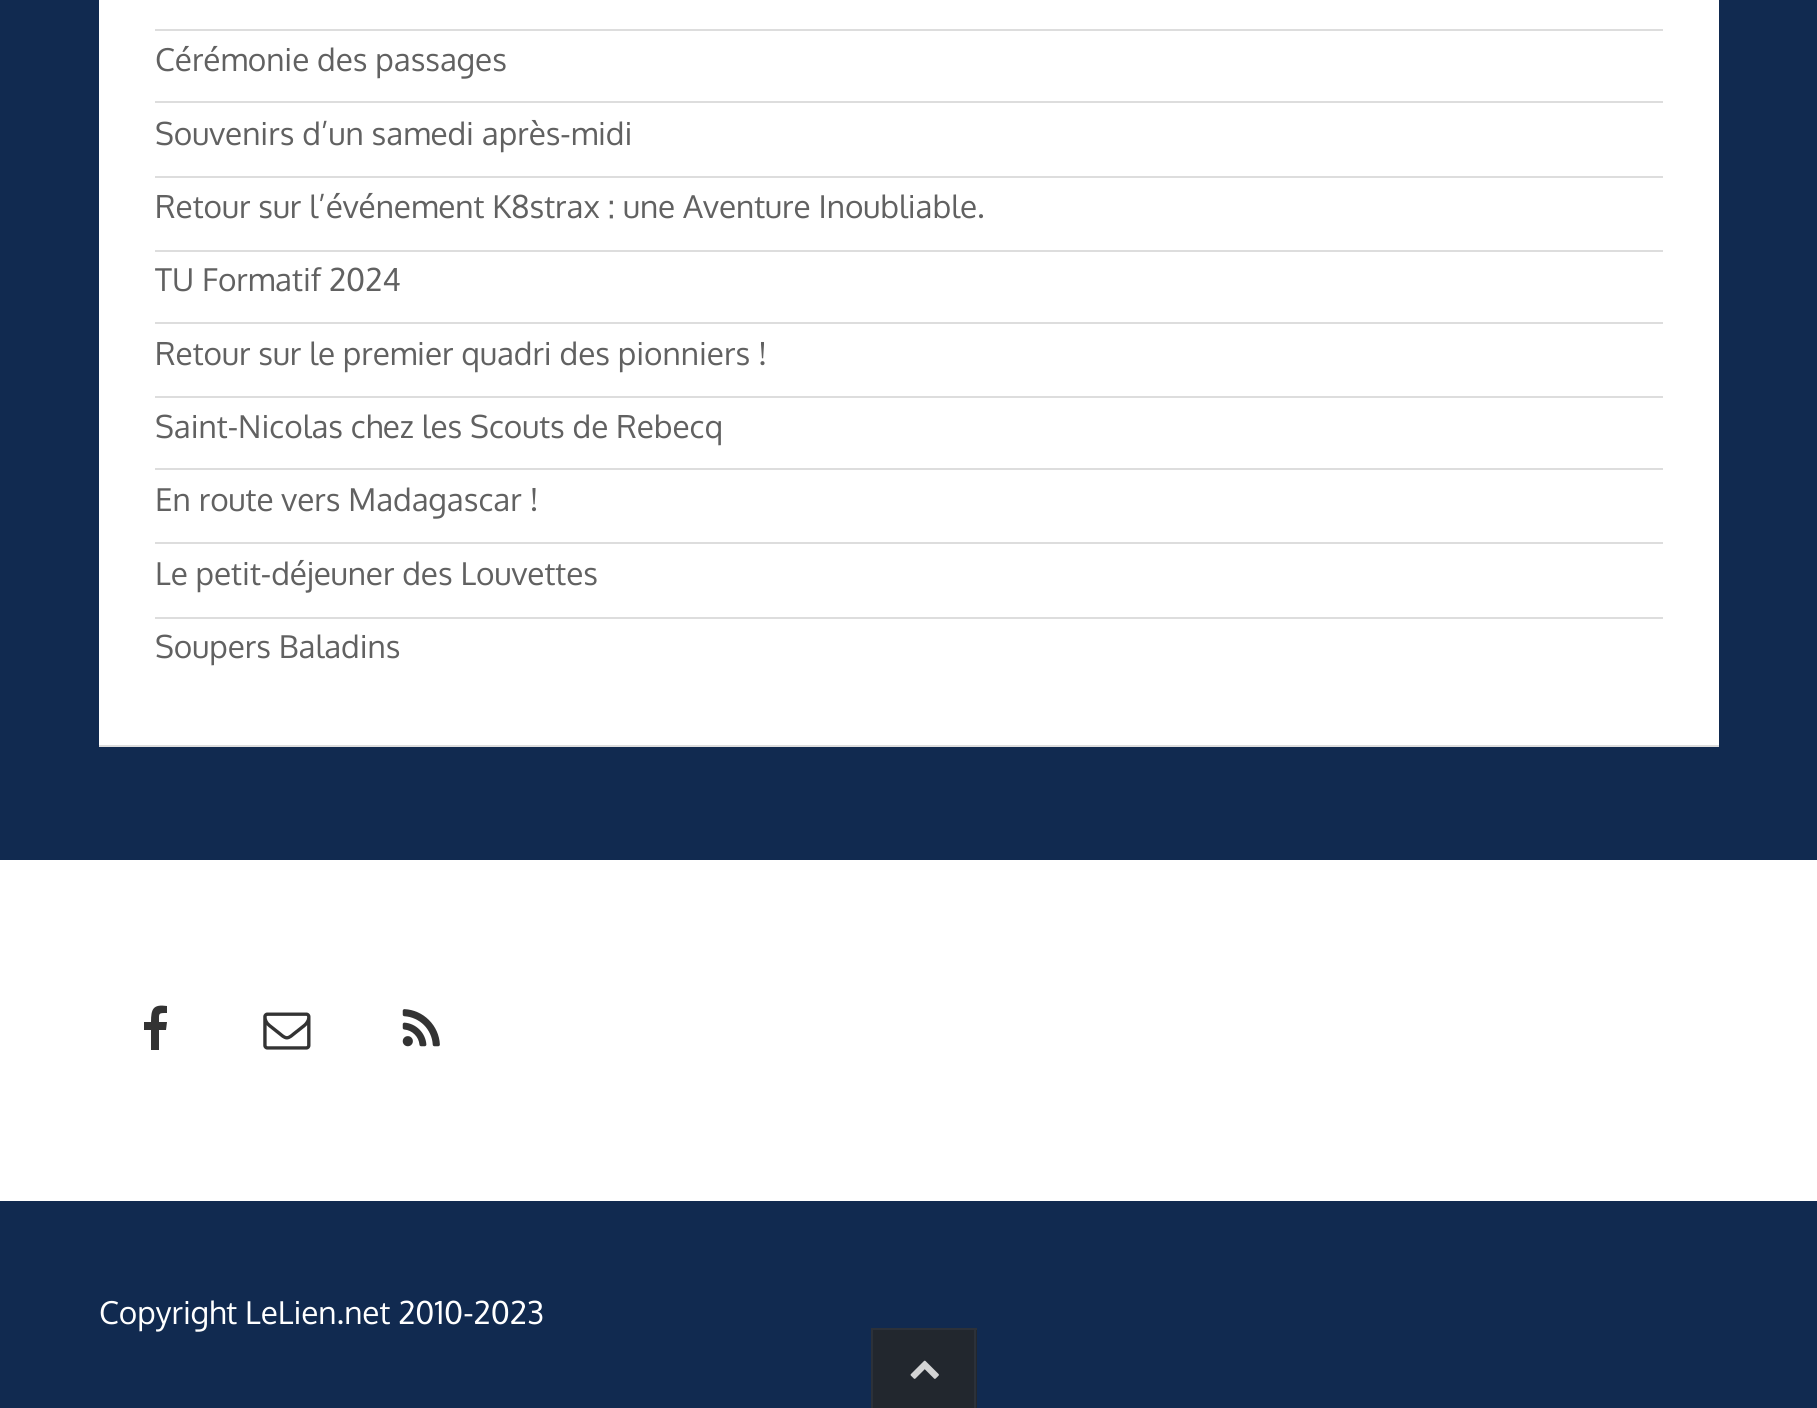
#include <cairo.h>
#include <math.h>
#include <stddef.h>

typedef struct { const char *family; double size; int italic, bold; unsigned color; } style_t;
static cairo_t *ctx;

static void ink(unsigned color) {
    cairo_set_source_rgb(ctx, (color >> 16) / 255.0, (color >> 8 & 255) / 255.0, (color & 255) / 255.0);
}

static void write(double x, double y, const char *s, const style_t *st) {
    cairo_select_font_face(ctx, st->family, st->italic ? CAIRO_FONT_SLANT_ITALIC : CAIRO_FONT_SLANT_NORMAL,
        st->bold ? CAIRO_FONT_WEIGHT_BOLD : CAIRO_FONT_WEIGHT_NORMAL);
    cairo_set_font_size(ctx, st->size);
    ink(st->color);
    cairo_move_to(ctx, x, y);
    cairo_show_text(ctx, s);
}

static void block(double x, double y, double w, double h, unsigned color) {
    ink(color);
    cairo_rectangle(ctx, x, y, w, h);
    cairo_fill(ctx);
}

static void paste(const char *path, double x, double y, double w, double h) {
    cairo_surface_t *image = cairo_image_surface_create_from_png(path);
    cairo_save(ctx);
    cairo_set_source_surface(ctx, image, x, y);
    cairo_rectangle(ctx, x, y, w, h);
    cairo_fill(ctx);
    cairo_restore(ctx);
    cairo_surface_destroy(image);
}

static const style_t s1 = {"Oxygen", 31.5, 0, 0, 0x616161};
static const style_t s2 = {"Oxygen", 31.5, 0, 0, 0xffffff};

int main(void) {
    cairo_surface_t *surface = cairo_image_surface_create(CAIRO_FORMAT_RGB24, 1817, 1408);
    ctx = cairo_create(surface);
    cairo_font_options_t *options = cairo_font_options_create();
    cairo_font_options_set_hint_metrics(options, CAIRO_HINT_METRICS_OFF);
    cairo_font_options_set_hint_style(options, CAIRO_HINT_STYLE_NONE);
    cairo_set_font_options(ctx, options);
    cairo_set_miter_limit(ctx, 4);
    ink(0x112a50);
    cairo_paint(ctx);
    block(99, 0, 1620, 745, 0xffffff);
    block(99, 745, 1620, 2, 0xdddddd);
    block(155, 29, 1508, 2, 0xdddddd);
    block(155, 101, 1508, 2, 0xdddddd);
    write(155, 71, "Cérémonie des passages", &s1);
    block(155, 176, 1508, 2, 0xdddddd);
    write(155, 145, "Souvenirs d’un samedi après-midi", &s1);
    block(155, 250, 1508, 2, 0xdddddd);
    write(155, 218, "Retour sur l’événement K8strax : une Aventure Inoubliable.", &s1);
    block(155, 322, 1508, 2, 0xdddddd);
    write(155, 291, "TU Formatif 2024", &s1);
    block(155, 396, 1508, 2, 0xdddddd);
    write(155, 365, "Retour sur le premier quadri des pionniers !", &s1);
    block(155, 468, 1508, 2, 0xdddddd);
    write(155, 438, "Saint-Nicolas chez les Scouts de Rebecq", &s1);
    block(155, 542, 1508, 2, 0xdddddd);
    write(155, 511, "En route vers Madagascar !", &s1);
    block(155, 617, 1508, 2, 0xdddddd);
    write(155, 585, "Le petit-déjeuner des Louvettes", &s1);
    write(155, 658, "Soupers Baladins", &s1);
    block(0, 860, 1817, 341, 0xffffff);
    ink(0x333333);
    cairo_new_path(ctx);
    cairo_move_to(ctx, 167, 1006);
    cairo_line_to(ctx, 167, 1013);
    cairo_curve_to(ctx, 158, 1013, 159, 1013, 159, 1022);
    cairo_line_to(ctx, 167, 1022);
    cairo_line_to(ctx, 166, 1030);
    cairo_line_to(ctx, 159, 1030);
    cairo_line_to(ctx, 159, 1050);
    cairo_line_to(ctx, 151, 1050);
    cairo_line_to(ctx, 151, 1030);
    cairo_line_to(ctx, 144, 1030);
    cairo_line_to(ctx, 144, 1022);
    cairo_line_to(ctx, 151, 1022);
    cairo_curve_to(ctx, 151, 1009, 153, 1004, 167, 1006);
    cairo_close_path(ctx);
    cairo_fill(ctx);
    paste("pic1.png", 263, 1012, 48, 38);
    paste("pic2.png", 402, 1009, 38, 38);
    write(99, 1324, "Copyright LeLien.net 2010-2023", &s2);
    block(873, 1330, 104, 78, 0x22272e);
    block(871, 1328, 106, 2, 0x2c3139);
    block(974, 1328, 2, 80, 0x2c3139);
    block(871, 1328, 2, 80, 0x2c3139);
    paste("pic3.png", 910, 1360, 29, 19);
    cairo_surface_write_to_png(surface, "screenshot.png");
    cairo_font_options_destroy(options);
    cairo_destroy(ctx);
    cairo_surface_destroy(surface);
    return 0;
}
